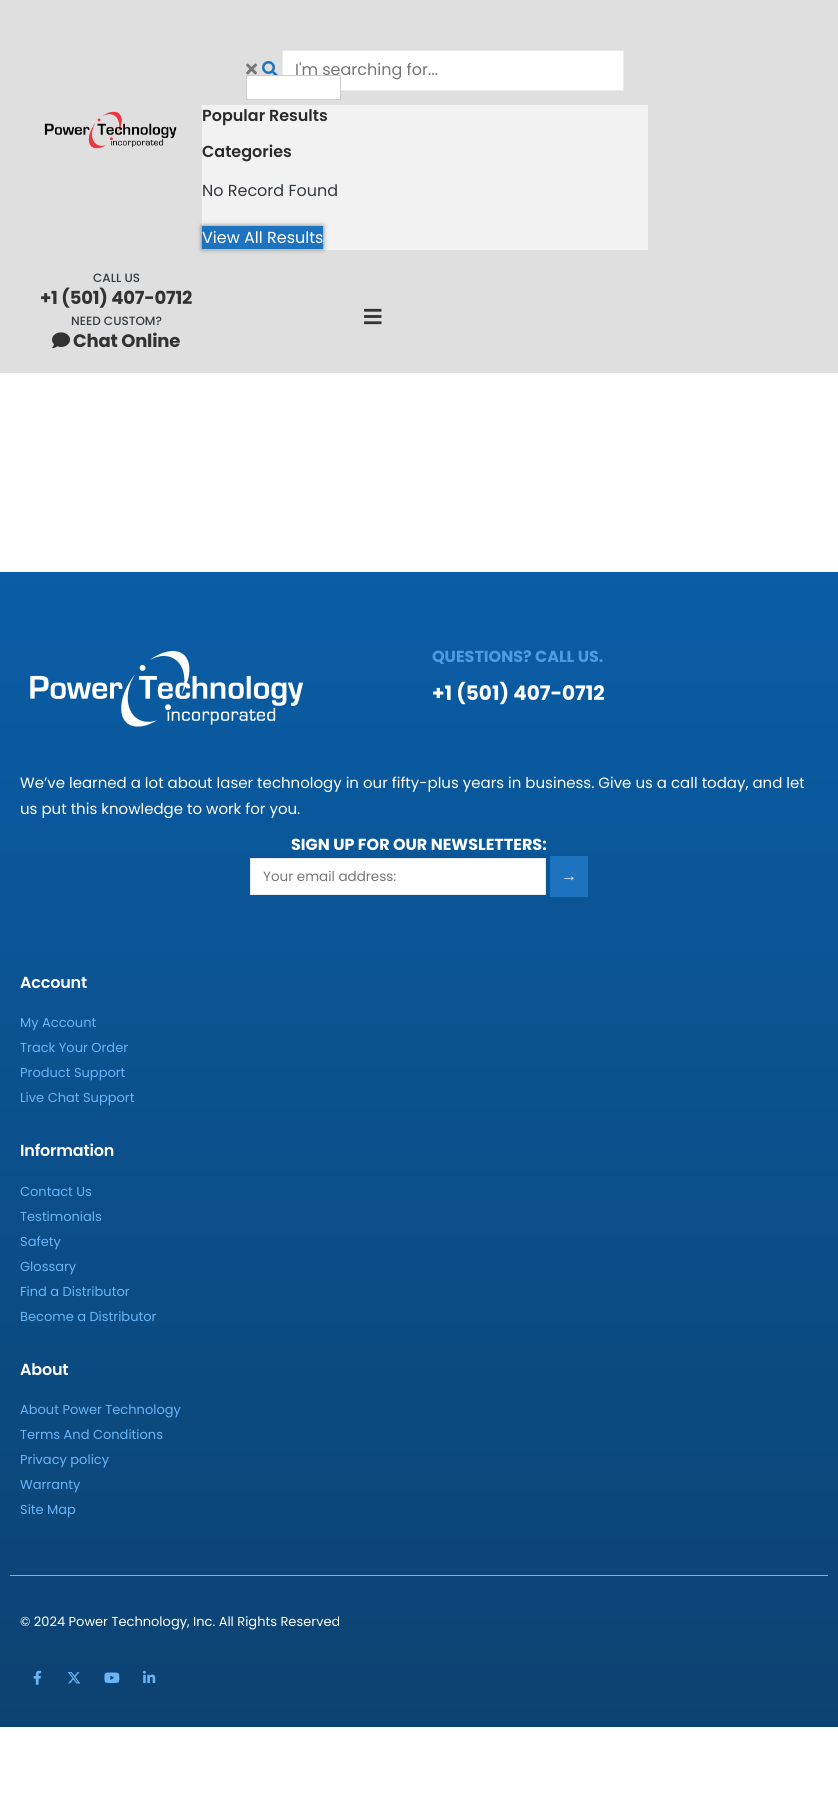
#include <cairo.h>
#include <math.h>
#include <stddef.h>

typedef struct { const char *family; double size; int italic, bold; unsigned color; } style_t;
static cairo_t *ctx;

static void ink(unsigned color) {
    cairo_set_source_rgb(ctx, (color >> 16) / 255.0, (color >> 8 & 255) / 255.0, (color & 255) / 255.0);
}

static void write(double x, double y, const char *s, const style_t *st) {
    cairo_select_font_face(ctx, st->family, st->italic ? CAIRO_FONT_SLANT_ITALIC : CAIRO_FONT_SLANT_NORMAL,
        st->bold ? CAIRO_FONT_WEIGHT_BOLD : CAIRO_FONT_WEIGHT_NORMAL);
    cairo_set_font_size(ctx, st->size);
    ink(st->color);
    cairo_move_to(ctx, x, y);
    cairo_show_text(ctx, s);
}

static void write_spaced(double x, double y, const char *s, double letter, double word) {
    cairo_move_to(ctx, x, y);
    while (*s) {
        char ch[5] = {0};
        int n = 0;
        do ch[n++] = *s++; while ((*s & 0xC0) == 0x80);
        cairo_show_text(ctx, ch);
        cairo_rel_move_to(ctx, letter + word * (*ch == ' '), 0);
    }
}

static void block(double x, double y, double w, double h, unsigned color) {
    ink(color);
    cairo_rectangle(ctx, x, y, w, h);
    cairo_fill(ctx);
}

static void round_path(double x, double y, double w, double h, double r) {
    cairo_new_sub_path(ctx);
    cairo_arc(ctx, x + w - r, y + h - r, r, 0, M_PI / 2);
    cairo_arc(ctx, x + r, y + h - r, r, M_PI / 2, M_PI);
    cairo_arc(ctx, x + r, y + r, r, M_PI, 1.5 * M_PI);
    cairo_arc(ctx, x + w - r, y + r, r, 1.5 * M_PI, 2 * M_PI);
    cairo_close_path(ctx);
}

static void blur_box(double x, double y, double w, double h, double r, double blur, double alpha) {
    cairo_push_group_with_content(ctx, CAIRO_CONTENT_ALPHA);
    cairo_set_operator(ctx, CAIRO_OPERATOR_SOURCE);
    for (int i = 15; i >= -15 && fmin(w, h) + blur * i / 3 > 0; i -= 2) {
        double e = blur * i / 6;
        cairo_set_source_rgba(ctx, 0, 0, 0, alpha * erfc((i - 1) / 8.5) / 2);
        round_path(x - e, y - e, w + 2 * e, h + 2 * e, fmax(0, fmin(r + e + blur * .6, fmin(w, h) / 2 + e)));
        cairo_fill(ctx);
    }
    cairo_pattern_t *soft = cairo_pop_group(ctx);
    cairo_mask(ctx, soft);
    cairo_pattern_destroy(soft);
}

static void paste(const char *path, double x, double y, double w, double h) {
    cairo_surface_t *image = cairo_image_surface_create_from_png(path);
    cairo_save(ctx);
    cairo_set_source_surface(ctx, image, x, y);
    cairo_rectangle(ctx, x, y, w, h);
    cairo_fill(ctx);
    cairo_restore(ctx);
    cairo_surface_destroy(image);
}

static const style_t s1 = {"Poppins", 16, 0, 0, 0x757575};
static const style_t s2 = {"Poppins SemiBold", 16, 0, 0, 0x2b2b2b};
static const style_t s3 = {"Poppins", 16, 0, 0, 0x343a40};
static const style_t s4 = {"Poppins", 16, 0, 0, 0xffffff};
static const style_t s5 = {"Poppins Medium", 12, 0, 0, 0x343a40};
static const style_t s6 = {"Poppins", 16, 0, 1, 0x4e9cdf};
static const style_t s7 = {"Poppins", 20, 0, 1, 0xffffff};
static const style_t s8 = {"Poppins", 15, 0, 0, 0xffffff};
static const style_t s9 = {"Poppins", 16, 0, 1, 0xffffff};
static const style_t s10 = {"Poppins", 13.5, 0, 0, 0x757575};
static const style_t s11 = {"Liberation Sans", 16, 0, 0, 0xffffff};
static const style_t s12 = {"Poppins", 13, 0, 0, 0x6ab5f6};
static const style_t s13 = {"Poppins", 13, 0, 0, 0xffffff};

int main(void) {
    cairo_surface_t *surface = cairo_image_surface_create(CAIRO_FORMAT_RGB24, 838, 1819);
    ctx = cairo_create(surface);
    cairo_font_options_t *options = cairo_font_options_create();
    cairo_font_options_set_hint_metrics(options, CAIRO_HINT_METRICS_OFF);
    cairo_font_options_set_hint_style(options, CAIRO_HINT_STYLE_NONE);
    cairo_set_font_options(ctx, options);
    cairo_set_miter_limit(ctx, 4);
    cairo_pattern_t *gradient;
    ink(0xffffff);
    cairo_paint(ctx);
    block(0, 0, 838, 373, 0xdfdfdf);
    paste("pic1.png", 44, 111, 133, 38);
    paste("pic2.png", 246, 63, 11, 12);
    paste("pic3.png", 262, 61, 16, 14);
    ink(0xffffff);
    cairo_rectangle(ctx, 282.5, 50.5, 341, 40);
    cairo_fill_preserve(ctx);
    ink(0xebebeb);
    cairo_set_line_width(ctx, 1);
    cairo_stroke(ctx);
    write(295, 75, "I'm searching for...", &s1);
    ink(0xffffff);
    cairo_rectangle(ctx, 246.5, 75.5, 94, 24);
    cairo_fill_preserve(ctx);
    ink(0xcccccc);
    cairo_stroke(ctx);
    block(202, 105, 446, 145, 0xf2f2f2);
    write(202, 121, "Popular Results", &s2);
    write(202, 157, "Categories", &s2);
    write(202, 196, "No Record Found", &s3);
    ink(0x000000);
    blur_box(202, 226, 121, 23, 0, 2.5, 0.5);
    block(202, 226, 121, 23, 0x1e73be);
    write(202, 243, "View All Results", &s4);
    write(93, 282, "CALL US", &s5);
    cairo_select_font_face(ctx, "Poppins", CAIRO_FONT_SLANT_NORMAL, CAIRO_FONT_WEIGHT_BOLD);
    cairo_set_font_size(ctx, 18);
    ink(0x323232);
    write_spaced(40, 304, "+1 (501) 407-0712", -0.2, 0);
    write(71, 325, "NEED CUSTOM?", &s5);
    paste("pic4.png", 52, 332, 18, 17);
    cairo_select_font_face(ctx, "Poppins", CAIRO_FONT_SLANT_NORMAL, CAIRO_FONT_WEIGHT_BOLD);
    cairo_set_font_size(ctx, 18);
    ink(0x323232);
    write_spaced(73, 347, "Chat Online", -0.2, 0);
    paste("pic5.png", 364, 308, 18, 17);
    gradient = cairo_pattern_create_linear(419, 572, 419, 1727);
    cairo_pattern_add_color_stop_rgba(gradient, 0, 0.039, 0.365, 0.651, 1);
    cairo_pattern_add_color_stop_rgba(gradient, 1, 0.047, 0.259, 0.443, 1);
    cairo_set_source(ctx, gradient);
    cairo_pattern_destroy(gradient);
    cairo_rectangle(ctx, 0, 572, 838, 1155);
    cairo_fill(ctx);
    paste("pic6.png", 30, 650, 274, 77);
    write(432, 662, "QUESTIONS? CALL US.", &s6);
    write(432, 700, "+1 (501) 407-0712", &s7);
    write(20, 788, "We’ve learned a lot about laser technology in our fifty-plus years in business. Give us a call today, and let", &s8);
    write(20, 814, "us put this knowledge to work for you.", &s8);
    write(291, 850, "SIGN UP FOR OUR NEWSLETTERS:", &s9);
    cairo_rectangle(ctx, 250.5, 858.5, 295, 36);
    cairo_fill_preserve(ctx);
    ink(0xebebeb);
    cairo_stroke(ctx);
    write(263, 881, "Your email address:", &s10);
    block(550, 856, 38, 41, 0x1e73be);
    write(561, 881, "→", &s11);
    cairo_select_font_face(ctx, "Poppins SemiBold", CAIRO_FONT_SLANT_NORMAL, CAIRO_FONT_WEIGHT_NORMAL);
    write_spaced(20, 988, "Account", -0.2, 0);
    write(20, 1027, "My Account", &s12);
    write(20, 1052, "Track Your Order", &s12);
    write(20, 1077, "Product Support", &s12);
    write(20, 1102, "Live Chat Support", &s12);
    cairo_select_font_face(ctx, "Poppins SemiBold", CAIRO_FONT_SLANT_NORMAL, CAIRO_FONT_WEIGHT_NORMAL);
    cairo_set_font_size(ctx, 16);
    ink(0xffffff);
    write_spaced(20, 1156, "Information", -0.2, 0);
    write(20, 1196, "Contact Us", &s12);
    write(20, 1221, "Testimonials", &s12);
    write(20, 1246, "Safety", &s12);
    write(20, 1271, "Glossary", &s12);
    write(20, 1296, "Find a Distributor", &s12);
    write(20, 1321, "Become a Distributor", &s12);
    cairo_select_font_face(ctx, "Poppins SemiBold", CAIRO_FONT_SLANT_NORMAL, CAIRO_FONT_WEIGHT_NORMAL);
    cairo_set_font_size(ctx, 16);
    ink(0xffffff);
    write_spaced(20, 1375, "About", -0.2, 0);
    write(20, 1414, "About Power Technology", &s12);
    write(20, 1439, "Terms And Conditions", &s12);
    write(20, 1464, "Privacy policy", &s12);
    write(20, 1489, "Warranty", &s12);
    write(20, 1514, "Site Map", &s12);
    block(10, 1575, 818, 1, 0x6ab5f6);
    write(20, 1626, "© 2024 Power Technology, Inc. All Rights Reserved", &s13);
    paste("pic7.png", 33, 1670, 9, 15);
    paste("pic8.png", 67, 1672, 14, 12);
    paste("pic9.png", 104, 1672, 16, 11);
    paste("pic10.png", 143, 1670, 13, 13);
    cairo_surface_write_to_png(surface, "screenshot.png");
    cairo_font_options_destroy(options);
    cairo_destroy(ctx);
    cairo_surface_destroy(surface);
    return 0;
}
